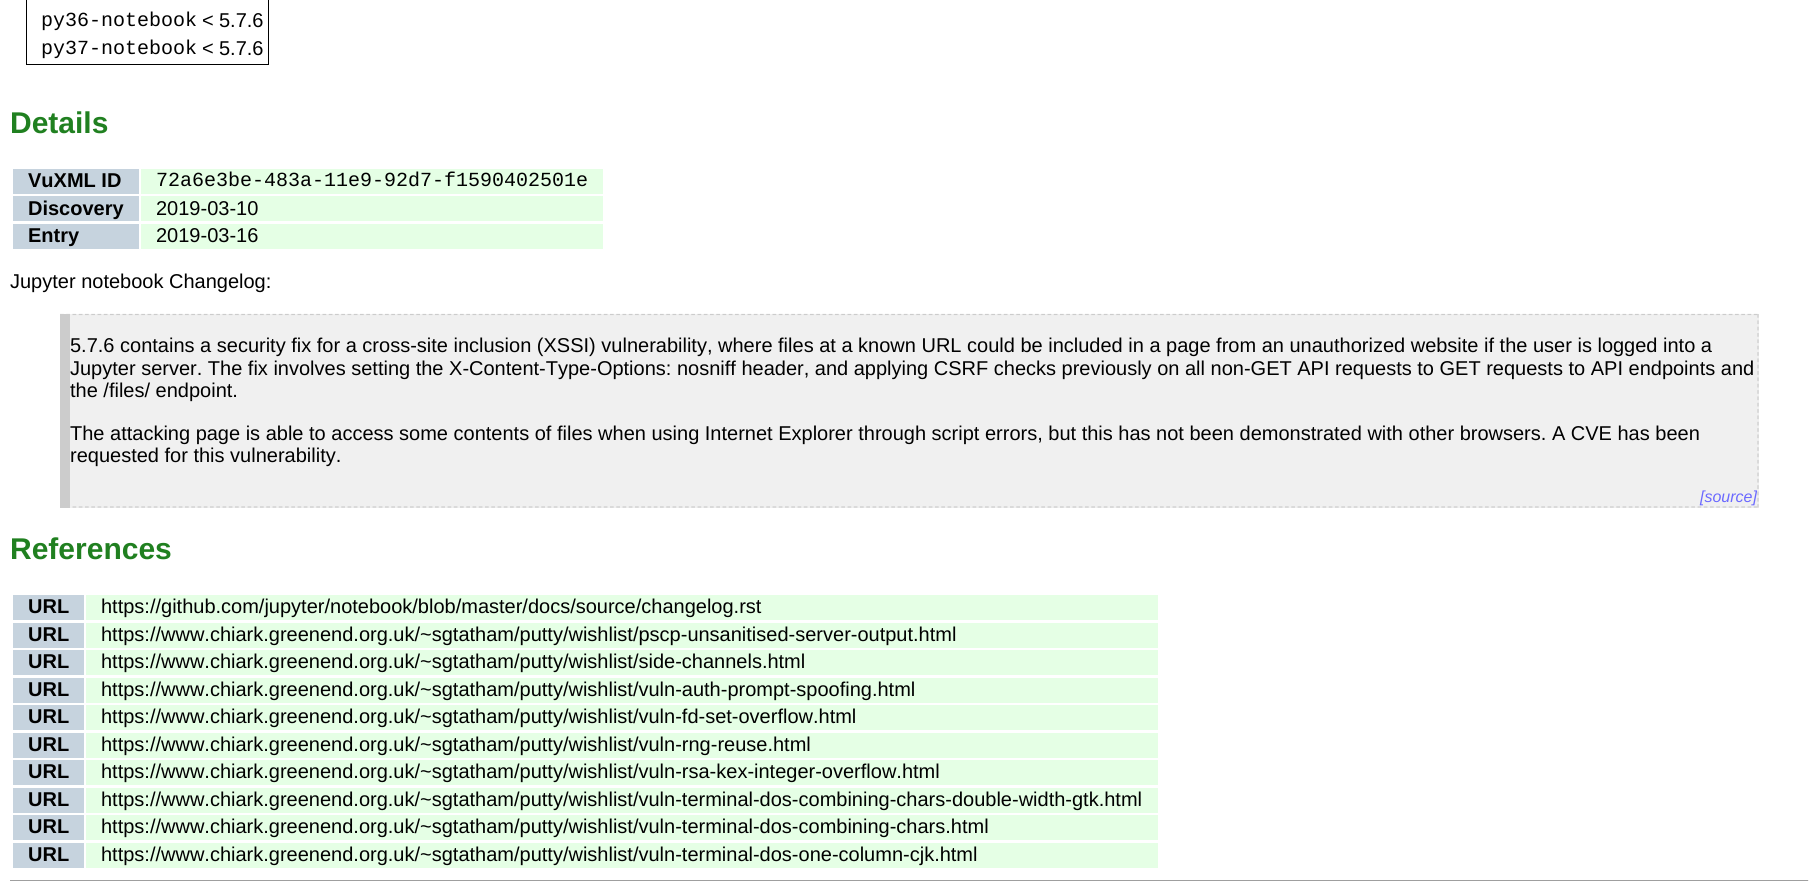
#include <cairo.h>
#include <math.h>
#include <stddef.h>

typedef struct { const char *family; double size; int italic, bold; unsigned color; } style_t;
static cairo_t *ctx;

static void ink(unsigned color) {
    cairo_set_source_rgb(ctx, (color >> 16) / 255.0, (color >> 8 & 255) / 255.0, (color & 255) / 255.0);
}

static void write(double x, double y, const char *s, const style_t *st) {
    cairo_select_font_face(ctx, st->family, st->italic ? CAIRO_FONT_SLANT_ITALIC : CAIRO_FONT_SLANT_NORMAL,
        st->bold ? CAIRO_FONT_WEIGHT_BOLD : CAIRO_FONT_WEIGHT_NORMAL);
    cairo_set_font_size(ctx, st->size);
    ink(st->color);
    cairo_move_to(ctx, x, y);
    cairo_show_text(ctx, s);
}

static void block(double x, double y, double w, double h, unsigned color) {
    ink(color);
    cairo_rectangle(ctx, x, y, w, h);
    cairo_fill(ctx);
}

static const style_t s1 = {"Liberation Mono", 20, 0, 0, 0x000000};
static const style_t s2 = {"Liberation Sans", 20, 0, 0, 0x000000};
static const style_t s3 = {"Liberation Sans", 30, 0, 1, 0x208020};
static const style_t s4 = {"Liberation Sans", 20, 0, 1, 0x000000};
static const style_t s5 = {"Liberation Sans", 16, 1, 0, 0x6b69ff};

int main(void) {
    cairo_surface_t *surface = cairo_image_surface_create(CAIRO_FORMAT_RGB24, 1818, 881);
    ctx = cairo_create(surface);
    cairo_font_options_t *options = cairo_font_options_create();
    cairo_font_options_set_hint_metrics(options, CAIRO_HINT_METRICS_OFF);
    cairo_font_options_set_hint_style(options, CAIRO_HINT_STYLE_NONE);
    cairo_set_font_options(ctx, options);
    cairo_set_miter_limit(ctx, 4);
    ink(0xffffff);
    cairo_paint(ctx);
    cairo_rectangle(ctx, 26.5, -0.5, 242, 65);
    ink(0x000000);
    cairo_set_line_width(ctx, 1);
    cairo_stroke(ctx);
    write(41, 26, "py36-notebook", &s1);
    write(202, 27, "<", &s2);
    write(219, 27, "5.7.6", &s2);
    write(41, 54, "py37-notebook", &s1);
    write(202, 55, "<", &s2);
    write(219, 55, "5.7.6", &s2);
    write(10, 133, "Details", &s3);
    block(13, 169, 126, 25, 0xc6d3de);
    write(28, 187, "VuXML ID", &s4);
    block(141, 169, 462, 25, 0xe5ffe5);
    write(156, 186, "72a6e3be-483a-11e9-92d7-f1590402501e", &s1);
    block(13, 196, 126, 25, 0xc6d3de);
    write(28, 215, "Discovery", &s4);
    block(141, 196, 462, 25, 0xe5ffe5);
    write(156, 215, "2019-03-10", &s2);
    block(13, 224, 126, 25, 0xc6d3de);
    write(28, 242, "Entry", &s4);
    block(141, 224, 462, 25, 0xe5ffe5);
    write(156, 242, "2019-03-16", &s2);
    write(10, 288, "Jupyter notebook Changelog:", &s2);
    block(70, 314, 1689, 194, 0xf0f0f0);
    cairo_new_path(ctx);
    cairo_move_to(ctx, 60, 314.5);
    cairo_line_to(ctx, 1759, 314.5);
    ink(0xcccccc);
    cairo_set_line_width(ctx, 1.2);
    cairo_set_dash(ctx, (double[]){3.75, 2.5}, 2, 0);
    cairo_stroke(ctx);
    cairo_new_path(ctx);
    cairo_move_to(ctx, 1758, 314);
    cairo_line_to(ctx, 1758, 507.5);
    cairo_set_dash(ctx, (double[]){3.75, 2.59}, 2, 0);
    cairo_stroke(ctx);
    cairo_new_path(ctx);
    cairo_move_to(ctx, 60, 507);
    cairo_line_to(ctx, 1759, 507);
    cairo_set_dash(ctx, (double[]){3.75, 2.5}, 2, 0);
    cairo_stroke(ctx);
    block(60, 314, 10, 194, 0xcccccc);
    write(70, 352, "5.7.6 contains a security fix for a cross-site inclusion (XSSI) vulnerability, where files at a known URL could be included in a page from an unauthorized website if the user is logged into a", &s2);
    write(70, 375, "Jupyter server. The fix involves setting the X-Content-Type-Options: nosniff header, and applying CSRF checks previously on all non-GET API requests to GET requests to API endpoints and", &s2);
    write(70, 397, "the /files/ endpoint.", &s2);
    write(70, 440, "The attacking page is able to access some contents of files when using Internet Explorer through script errors, but this has not been demonstrated with other browsers. A CVE has been", &s2);
    write(70, 462, "requested for this vulnerability.", &s2);
    write(1700, 502, "[source]", &s5);
    write(10, 559, "References", &s3);
    block(13, 595, 71, 25, 0xc6d3de);
    write(28, 613, "URL", &s4);
    block(86, 595, 1072, 25, 0xe5ffe5);
    write(101, 613, "https://github.com/jupyter/notebook/blob/master/docs/source/changelog.rst", &s2);
    block(13, 623, 71, 25, 0xc6d3de);
    write(28, 641, "URL", &s4);
    block(86, 623, 1072, 25, 0xe5ffe5);
    write(101, 641, "https://www.chiark.greenend.org.uk/~sgtatham/putty/wishlist/pscp-unsanitised-server-output.html", &s2);
    block(13, 650, 71, 25, 0xc6d3de);
    write(28, 668, "URL", &s4);
    block(86, 650, 1072, 25, 0xe5ffe5);
    write(101, 668, "https://www.chiark.greenend.org.uk/~sgtatham/putty/wishlist/side-channels.html", &s2);
    block(13, 678, 71, 25, 0xc6d3de);
    write(28, 696, "URL", &s4);
    block(86, 678, 1072, 25, 0xe5ffe5);
    write(101, 696, "https://www.chiark.greenend.org.uk/~sgtatham/putty/wishlist/vuln-auth-prompt-spoofing.html", &s2);
    block(13, 705, 71, 25, 0xc6d3de);
    write(28, 723, "URL", &s4);
    block(86, 705, 1072, 25, 0xe5ffe5);
    write(101, 723, "https://www.chiark.greenend.org.uk/~sgtatham/putty/wishlist/vuln-fd-set-overflow.html", &s2);
    block(13, 733, 71, 25, 0xc6d3de);
    write(28, 751, "URL", &s4);
    block(86, 733, 1072, 25, 0xe5ffe5);
    write(101, 751, "https://www.chiark.greenend.org.uk/~sgtatham/putty/wishlist/vuln-rng-reuse.html", &s2);
    block(13, 760, 71, 25, 0xc6d3de);
    write(28, 778, "URL", &s4);
    block(86, 760, 1072, 25, 0xe5ffe5);
    write(101, 778, "https://www.chiark.greenend.org.uk/~sgtatham/putty/wishlist/vuln-rsa-kex-integer-overflow.html", &s2);
    block(13, 788, 71, 25, 0xc6d3de);
    write(28, 806, "URL", &s4);
    block(86, 788, 1072, 25, 0xe5ffe5);
    write(101, 806, "https://www.chiark.greenend.org.uk/~sgtatham/putty/wishlist/vuln-terminal-dos-combining-chars-double-width-gtk.html", &s2);
    block(13, 815, 71, 25, 0xc6d3de);
    write(28, 833, "URL", &s4);
    block(86, 815, 1072, 25, 0xe5ffe5);
    write(101, 833, "https://www.chiark.greenend.org.uk/~sgtatham/putty/wishlist/vuln-terminal-dos-combining-chars.html", &s2);
    block(13, 843, 71, 25, 0xc6d3de);
    write(28, 861, "URL", &s4);
    block(86, 843, 1072, 25, 0xe5ffe5);
    write(101, 861, "https://www.chiark.greenend.org.uk/~sgtatham/putty/wishlist/vuln-terminal-dos-one-column-cjk.html", &s2);
    block(10, 880, 1799, 1, 0x9f9f9f);
    block(1808, 880, 1, 1, 0xeeeeee);
    cairo_surface_write_to_png(surface, "screenshot.png");
    cairo_font_options_destroy(options);
    cairo_destroy(ctx);
    cairo_surface_destroy(surface);
    return 0;
}
